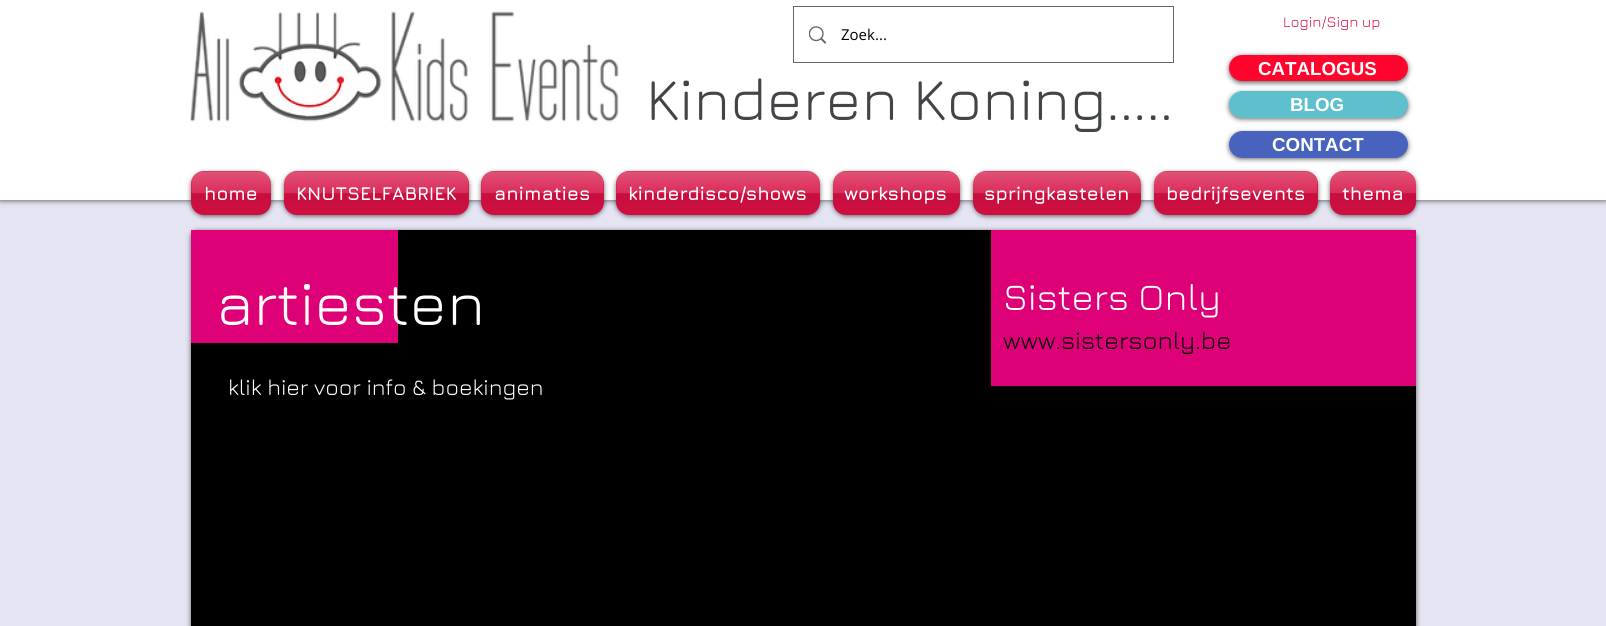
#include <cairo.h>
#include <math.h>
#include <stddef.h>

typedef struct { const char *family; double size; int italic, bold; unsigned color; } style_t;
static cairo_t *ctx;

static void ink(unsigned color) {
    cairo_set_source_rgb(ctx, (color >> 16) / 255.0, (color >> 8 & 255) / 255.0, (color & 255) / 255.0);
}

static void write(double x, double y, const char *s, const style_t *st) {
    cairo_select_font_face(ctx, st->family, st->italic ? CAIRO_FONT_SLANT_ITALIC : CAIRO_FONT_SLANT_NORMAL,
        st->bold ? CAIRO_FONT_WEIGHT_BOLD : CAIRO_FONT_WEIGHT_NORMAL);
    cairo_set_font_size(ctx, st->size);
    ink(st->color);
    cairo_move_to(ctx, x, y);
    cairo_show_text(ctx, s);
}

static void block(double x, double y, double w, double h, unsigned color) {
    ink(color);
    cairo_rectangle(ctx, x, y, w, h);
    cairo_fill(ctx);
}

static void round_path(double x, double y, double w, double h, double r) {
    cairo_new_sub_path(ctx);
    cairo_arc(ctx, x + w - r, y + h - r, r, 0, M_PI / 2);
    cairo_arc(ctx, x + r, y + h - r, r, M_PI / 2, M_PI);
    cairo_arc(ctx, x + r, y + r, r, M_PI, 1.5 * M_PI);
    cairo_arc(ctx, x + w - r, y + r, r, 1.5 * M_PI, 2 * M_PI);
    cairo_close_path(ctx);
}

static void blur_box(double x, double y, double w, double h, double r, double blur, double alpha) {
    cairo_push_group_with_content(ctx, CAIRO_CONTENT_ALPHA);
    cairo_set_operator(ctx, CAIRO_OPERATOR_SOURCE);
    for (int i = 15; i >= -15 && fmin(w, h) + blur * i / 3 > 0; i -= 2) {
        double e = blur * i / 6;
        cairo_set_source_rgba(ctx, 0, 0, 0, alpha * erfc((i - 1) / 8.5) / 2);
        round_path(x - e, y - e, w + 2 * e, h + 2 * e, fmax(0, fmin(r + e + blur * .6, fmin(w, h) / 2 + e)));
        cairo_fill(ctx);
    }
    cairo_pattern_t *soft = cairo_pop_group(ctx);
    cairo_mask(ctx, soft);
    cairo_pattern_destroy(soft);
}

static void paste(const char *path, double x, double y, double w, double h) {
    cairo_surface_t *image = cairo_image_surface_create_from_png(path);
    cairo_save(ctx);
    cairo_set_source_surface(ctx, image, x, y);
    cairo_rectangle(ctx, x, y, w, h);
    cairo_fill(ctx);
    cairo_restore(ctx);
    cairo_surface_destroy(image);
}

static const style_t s1 = {"Jura", 15, 0, 0, 0xd61043};
static const style_t s2 = {"Open Sans", 15, 0, 0, 0x000000};
static const style_t s3 = {"Liberation Sans", 18.75, 0, 1, 0xffffff};
static const style_t s4 = {"Jura", 60, 0, 0, 0x414547};
static const style_t s5 = {"Jura", 18.75, 0, 1, 0xffffff};
static const style_t s6 = {"Jura", 62.5, 0, 0, 0xffffff};
static const style_t s7 = {"Jura", 37.5, 0, 0, 0xffffff};
static const style_t s8 = {"Jura", 25, 0, 0, 0x000000};
static const style_t s9 = {"Jura", 22.5, 0, 0, 0xffffff};

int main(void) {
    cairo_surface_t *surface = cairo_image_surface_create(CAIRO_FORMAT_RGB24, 1606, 626);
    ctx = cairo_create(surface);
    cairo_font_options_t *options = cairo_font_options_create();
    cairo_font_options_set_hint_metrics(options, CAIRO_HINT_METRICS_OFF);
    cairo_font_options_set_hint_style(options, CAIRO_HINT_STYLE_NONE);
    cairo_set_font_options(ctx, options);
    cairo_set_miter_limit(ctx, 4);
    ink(0xe4e4f3);
    cairo_paint(ctx);
    ink(0x000000);
    blur_box(0, -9, 1606, 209, 0, 3, 0.7);
    block(0, 0, 1606, 200, 0xffffff);
    paste("pic1.png", 190, 11, 429, 111);
    write(1283, 27, "Login/Sign up", &s1);
    cairo_rectangle(ctx, 793.5, 6.5, 380, 56);
    ink(0x666666);
    cairo_set_line_width(ctx, 1);
    cairo_stroke(ctx);
    paste("pic2.png", 809, 26, 17, 18);
    write(841, 40, "Zoek...", &s2);
    ink(0x000000);
    blur_box(1229, 56, 179, 27, 13.5, 2.5, 0.6);
    ink(0xff052d);
    round_path(1229, 55, 179, 26, 13);
    cairo_fill(ctx);
    write(1258, 75, "CATALOGUS", &s3);
    write(646, 120, "Kinderen Koning.....", &s4);
    ink(0x000000);
    blur_box(1229, 93, 179, 26, 13, 2.5, 0.6);
    ink(0x5dc0cc);
    round_path(1229, 91, 179, 27, 13.5);
    cairo_fill(ctx);
    write(1290, 111, "BLOG", &s3);
    ink(0x000000);
    blur_box(1229, 133, 179, 26, 13, 2.5, 0.6);
    ink(0x4863bd);
    round_path(1229, 131, 179, 27, 13.5);
    cairo_fill(ctx);
    write(1272, 151, "CONTACT", &s3);
    ink(0x000000);
    blur_box(191, 173, 80, 43, 13, 2.5, 0.6);
    ink(0xd61043);
    round_path(191, 171, 80, 44, 13);
    cairo_fill(ctx);
    paste("pic3.png", 191, 171, 80, 44);
    write(204, 200, "home", &s5);
    ink(0x000000);
    blur_box(284, 173, 185, 43, 13, 2.5, 0.6);
    ink(0xd61043);
    round_path(284, 171, 185, 44, 13);
    cairo_fill(ctx);
    paste("pic4.png", 284, 171, 185, 44);
    write(296, 200, "KNUTSELFABRIEK", &s5);
    ink(0x000000);
    blur_box(481, 173, 123, 43, 13, 2.5, 0.6);
    ink(0xd61043);
    round_path(481, 171, 123, 44, 13);
    cairo_fill(ctx);
    paste("pic5.png", 481, 171, 123, 44);
    write(494, 200, "animaties", &s5);
    ink(0x000000);
    blur_box(616, 173, 204, 43, 13, 2.5, 0.6);
    ink(0xd61043);
    round_path(616, 171, 204, 44, 13);
    cairo_fill(ctx);
    paste("pic6.png", 616, 171, 204, 44);
    write(628, 200, "kinderdisco/shows", &s5);
    ink(0x000000);
    blur_box(833, 173, 127, 43, 13, 2.5, 0.6);
    ink(0xd61043);
    round_path(833, 171, 127, 44, 13);
    cairo_fill(ctx);
    paste("pic7.png", 833, 171, 127, 44);
    write(844, 200, "workshops", &s5);
    ink(0x000000);
    blur_box(973, 173, 168, 43, 13, 2.5, 0.6);
    ink(0xd61043);
    round_path(973, 171, 168, 44, 13);
    cairo_fill(ctx);
    paste("pic8.png", 973, 171, 168, 44);
    write(984, 200, "springkastelen", &s5);
    ink(0x000000);
    blur_box(1154, 173, 164, 43, 13, 2.5, 0.6);
    ink(0xd61043);
    round_path(1154, 171, 164, 44, 13);
    cairo_fill(ctx);
    paste("pic9.png", 1154, 171, 164, 44);
    write(1166, 200, "bedrijfsevents", &s5);
    ink(0x000000);
    blur_box(1330, 173, 86, 43, 13, 2.5, 0.6);
    ink(0xd61043);
    round_path(1330, 171, 86, 44, 13);
    cairo_fill(ctx);
    paste("pic10.png", 1330, 171, 86, 44);
    write(1342, 200, "thema", &s5);
    ink(0x000000);
    blur_box(191, 231, 1225, 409, 6, 2.5, 0.6);
    ink(0x000000);
    cairo_rectangle(ctx, 191.5, 230.5, 1224, 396);
    cairo_fill_preserve(ctx);
    cairo_stroke(ctx);
    block(191, 230, 207, 113, 0xdd0076);
    write(216, 325, "artiesten", &s6);
    block(991, 230, 425, 156, 0xdd0076);
    write(1003, 310, "Sisters Only", &s7);
    write(1003, 349, "www.sistersonly.be", &s8);
    write(228, 395, "klik hier voor info & boekingen", &s9);
    cairo_surface_write_to_png(surface, "screenshot.png");
    cairo_font_options_destroy(options);
    cairo_destroy(ctx);
    cairo_surface_destroy(surface);
    return 0;
}
